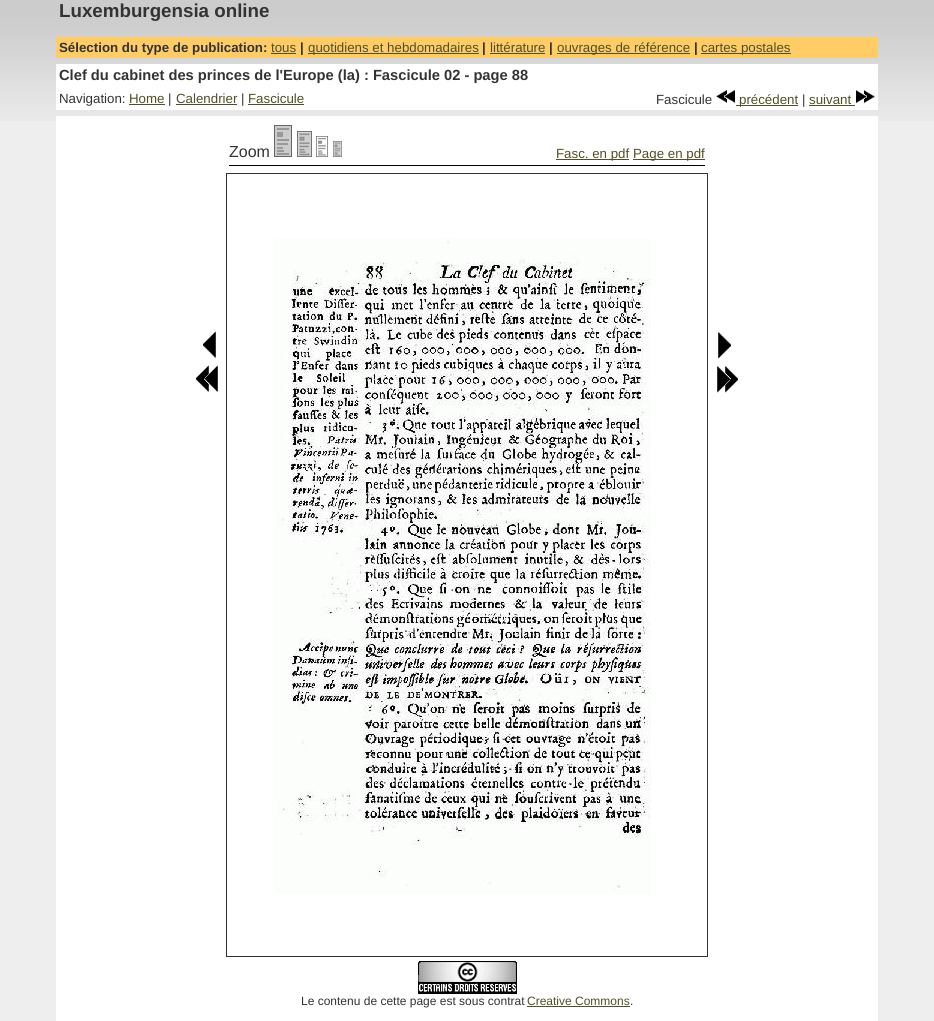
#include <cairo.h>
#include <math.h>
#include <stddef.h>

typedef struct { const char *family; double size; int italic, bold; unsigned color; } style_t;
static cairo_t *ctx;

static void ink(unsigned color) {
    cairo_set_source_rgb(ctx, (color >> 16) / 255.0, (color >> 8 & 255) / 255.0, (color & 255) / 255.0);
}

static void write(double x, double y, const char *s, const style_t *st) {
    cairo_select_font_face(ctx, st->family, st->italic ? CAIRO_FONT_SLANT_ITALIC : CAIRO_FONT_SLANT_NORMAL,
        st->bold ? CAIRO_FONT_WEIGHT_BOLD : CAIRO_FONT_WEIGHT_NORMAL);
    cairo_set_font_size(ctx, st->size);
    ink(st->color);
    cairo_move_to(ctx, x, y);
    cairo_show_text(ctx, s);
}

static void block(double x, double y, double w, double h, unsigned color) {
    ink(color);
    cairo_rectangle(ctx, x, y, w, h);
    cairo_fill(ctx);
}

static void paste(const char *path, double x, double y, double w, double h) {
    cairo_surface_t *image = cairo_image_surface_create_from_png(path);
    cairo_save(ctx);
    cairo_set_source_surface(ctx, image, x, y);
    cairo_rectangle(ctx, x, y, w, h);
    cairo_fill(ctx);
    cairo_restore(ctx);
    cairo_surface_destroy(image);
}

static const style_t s1 = {"Liberation Sans", 18.75, 0, 1, 0x333333};
static const style_t s2 = {"Liberation Sans", 13.3, 0, 1, 0x333333};
static const style_t s3 = {"Liberation Sans", 13.3, 0, 0, 0x4f4f28};
static const style_t s4 = {"Liberation Sans", 14.7, 0, 1, 0x333333};
static const style_t s5 = {"Liberation Sans", 13.3, 0, 0, 0x333333};
static const style_t s6 = {"Liberation Sans", 16, 0, 0, 0x333333};
static const style_t s7 = {"Liberation Sans", 12, 0, 0, 0x333333};
static const style_t s8 = {"Liberation Sans", 12, 0, 0, 0x4f4f28};

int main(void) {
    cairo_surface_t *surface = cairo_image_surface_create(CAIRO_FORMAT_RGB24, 934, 1021);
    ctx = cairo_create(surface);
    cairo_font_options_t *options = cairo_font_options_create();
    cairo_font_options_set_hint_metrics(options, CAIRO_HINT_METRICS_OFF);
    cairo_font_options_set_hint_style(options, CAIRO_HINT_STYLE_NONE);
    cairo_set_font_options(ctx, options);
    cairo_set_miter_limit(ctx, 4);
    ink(0xeeeeee);
    cairo_paint(ctx);
    paste("pic1.png", 0, 0, 934, 121);
    paste("pic2.png", 56, 0, 822, 37);
    write(59, 17, "Luxemburgensia online", &s1);
    block(56, 37, 822, 21, 0xffcc66);
    write(59, 52, "Sélection du type de publication:", &s2);
    write(271, 52, "tous", &s3);
    block(271, 53, 25, 1, 0x4f4f28);
    write(300, 52, "|", &s2);
    block(308, 53, 171, 1, 0x4f4f28);
    write(308, 52, "quotidiens et hebdomadaires", &s3);
    write(482, 52, "|", &s2);
    write(490, 52, "littérature", &s3);
    block(490, 53, 55, 1, 0x4f4f28);
    write(549, 52, "|", &s2);
    block(557, 53, 133, 1, 0x4f4f28);
    write(557, 52, "ouvrages de référence", &s3);
    write(694, 52, "|", &s2);
    block(701, 53, 90, 1, 0x4f4f28);
    write(701, 52, "cartes postales", &s3);
    block(56, 64, 822, 46, 0xffffff);
    write(59, 80, "Clef du cabinet des princes de l'Europe (la) : Fascicule 02 - page 88", &s4);
    write(59, 103, "Navigation:", &s5);
    write(129, 103, "Home", &s3);
    block(129, 104, 36, 1, 0x4f4f28);
    write(168, 103, "|", &s5);
    write(176, 103, "Calendrier", &s3);
    block(176, 104, 61, 1, 0x4f4f28);
    write(241, 103, "|", &s5);
    write(248, 103, "Fascicule", &s3);
    block(248, 104, 56, 1, 0x4f4f28);
    write(656, 104, "Fascicule", &s5);
    paste("pic3.png", 716, 89, 19, 14);
    block(736, 105, 62, 1, 0x4f4f28);
    write(739, 104, "précédent", &s3);
    write(802, 104, "|", &s5);
    write(809, 104, "suivant", &s3);
    block(809, 105, 46, 1, 0x4f4f28);
    paste("pic4.png", 856, 90, 19, 14);
    block(56, 116, 822, 905, 0xffffff);
    write(229, 157, "Zoom", &s6);
    paste("pic5.png", 274, 125, 18, 32);
    paste("pic6.png", 297, 131, 15, 26);
    paste("pic7.png", 316, 136, 12, 21);
    paste("pic8.png", 333, 141, 9, 16);
    block(556, 159, 73, 1, 0x4f4f28);
    write(556, 158, "Fasc. en pdf", &s3);
    block(633, 159, 72, 1, 0x4f4f28);
    write(633, 158, "Page en pdf", &s3);
    block(229, 165, 476, 1, 0x000000);
    paste("pic9.png", 203, 331, 13, 27);
    paste("pic10.png", 196, 365, 22, 27);
    cairo_rectangle(ctx, 226.5, 173.5, 481, 783);
    ink(0x333333);
    cairo_set_line_width(ctx, 1);
    cairo_stroke(ctx);
    paste("pic11.png", 275, 238, 376, 656);
    paste("pic12.png", 718, 332, 13, 27);
    paste("pic13.png", 717, 366, 21, 27);
    paste("pic14.png", 418, 961, 99, 33);
    write(301, 1005, "Le contenu de cette page est sous contrat", &s7);
    write(527, 1005, "Creative Commons", &s8);
    block(527, 1006, 103, 1, 0x4f4f28);
    write(630, 1005, ".", &s7);
    cairo_surface_write_to_png(surface, "screenshot.png");
    cairo_font_options_destroy(options);
    cairo_destroy(ctx);
    cairo_surface_destroy(surface);
    return 0;
}
